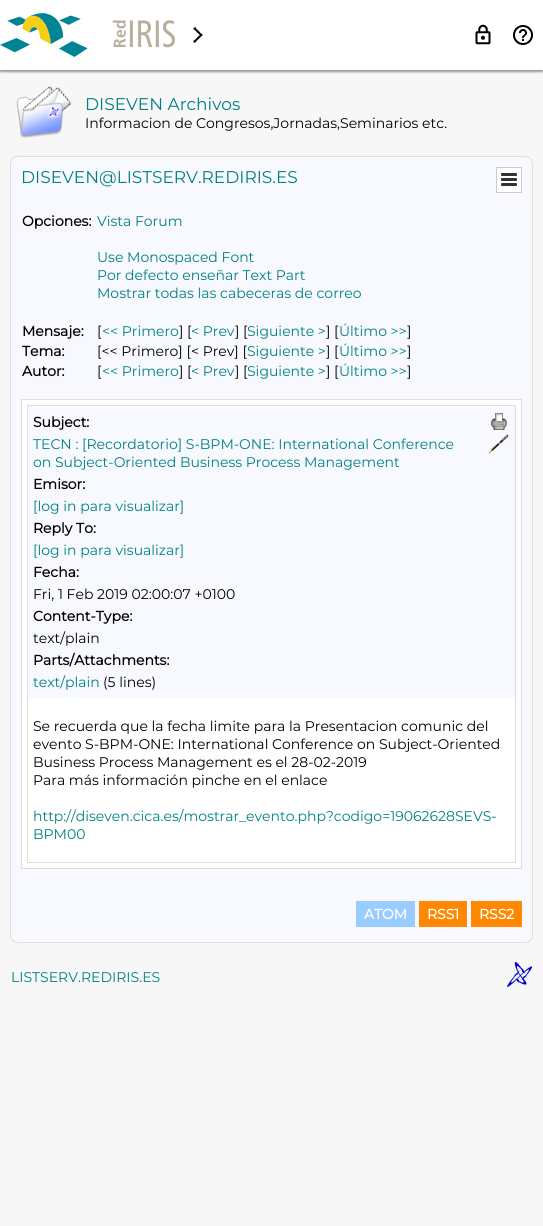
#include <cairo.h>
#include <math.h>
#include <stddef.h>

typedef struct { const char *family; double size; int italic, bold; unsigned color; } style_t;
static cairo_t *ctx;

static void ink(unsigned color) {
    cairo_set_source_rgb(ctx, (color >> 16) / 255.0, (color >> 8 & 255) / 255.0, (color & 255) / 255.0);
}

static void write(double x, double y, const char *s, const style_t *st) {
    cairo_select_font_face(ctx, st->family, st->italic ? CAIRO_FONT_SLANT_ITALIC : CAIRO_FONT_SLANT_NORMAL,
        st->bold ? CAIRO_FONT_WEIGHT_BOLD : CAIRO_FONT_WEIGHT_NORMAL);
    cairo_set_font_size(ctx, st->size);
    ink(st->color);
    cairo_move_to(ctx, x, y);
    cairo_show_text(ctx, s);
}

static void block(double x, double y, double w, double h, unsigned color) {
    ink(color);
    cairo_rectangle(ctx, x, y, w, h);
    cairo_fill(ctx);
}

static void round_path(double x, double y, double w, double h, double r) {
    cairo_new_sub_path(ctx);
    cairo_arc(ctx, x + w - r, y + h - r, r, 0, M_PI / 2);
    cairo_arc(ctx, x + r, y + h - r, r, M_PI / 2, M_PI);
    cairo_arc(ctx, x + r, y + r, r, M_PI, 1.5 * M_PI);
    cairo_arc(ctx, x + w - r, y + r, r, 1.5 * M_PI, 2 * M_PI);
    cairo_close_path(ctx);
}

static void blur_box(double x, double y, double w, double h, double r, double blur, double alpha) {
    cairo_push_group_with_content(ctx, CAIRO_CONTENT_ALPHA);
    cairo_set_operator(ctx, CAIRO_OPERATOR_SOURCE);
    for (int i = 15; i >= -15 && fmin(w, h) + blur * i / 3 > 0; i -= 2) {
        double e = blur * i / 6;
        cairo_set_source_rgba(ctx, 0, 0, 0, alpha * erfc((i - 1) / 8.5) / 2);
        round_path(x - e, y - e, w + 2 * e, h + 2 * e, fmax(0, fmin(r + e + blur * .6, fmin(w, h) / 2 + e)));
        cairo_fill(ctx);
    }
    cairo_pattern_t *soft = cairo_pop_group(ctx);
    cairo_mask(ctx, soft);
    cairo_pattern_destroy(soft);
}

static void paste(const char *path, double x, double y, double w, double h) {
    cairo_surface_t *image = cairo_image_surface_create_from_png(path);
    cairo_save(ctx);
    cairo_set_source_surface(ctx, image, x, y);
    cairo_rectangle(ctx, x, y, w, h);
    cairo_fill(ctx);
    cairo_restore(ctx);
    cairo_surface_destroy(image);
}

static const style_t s1 = {"Montserrat Thin", 17, 0, 0, 0x008080};
static const style_t s2 = {"Montserrat Thin", 14, 0, 0, 0x000000};
static const style_t s3 = {"Montserrat", 14, 0, 1, 0x000000};
static const style_t s4 = {"Montserrat Thin", 14, 0, 0, 0x008080};
static const style_t s5 = {"Montserrat", 14, 0, 1, 0xffffff};

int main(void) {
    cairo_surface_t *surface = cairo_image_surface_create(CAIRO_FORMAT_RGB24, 543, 1226);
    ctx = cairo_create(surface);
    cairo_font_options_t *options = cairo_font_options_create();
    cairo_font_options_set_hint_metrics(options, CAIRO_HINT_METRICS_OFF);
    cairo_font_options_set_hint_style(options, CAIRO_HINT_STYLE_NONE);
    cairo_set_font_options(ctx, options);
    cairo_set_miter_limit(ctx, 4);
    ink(0xf7f7f7);
    cairo_paint(ctx);
    ink(0x999999);
    blur_box(0, 2, 543, 70, 0, 1, 1);
    block(0, 0, 543, 70, 0xffffff);
    paste("pic1.png", 0, 13, 175, 44);
    paste("pic2.png", 193, 27, 10, 16);
    paste("pic3.png", 475, 24, 16, 21);
    paste("pic4.png", 513, 25, 20, 20);
    paste("pic5.png", 16, 86, 56, 52);
    write(85, 110, "DISEVEN Archivos", &s1);
    write(85, 128, "Informacion de Congresos,Jornadas,Seminarios etc.", &s2);
    ink(0xf7f9fe);
    round_path(10.5, 156.5, 522, 786, 7.5);
    cairo_fill_preserve(ctx);
    ink(0xdedede);
    cairo_set_line_width(ctx, 1);
    cairo_stroke(ctx);
    write(21, 183, "DISEVEN@LISTSERV.REDIRIS.ES", &s1);
    ink(0xffffff);
    cairo_rectangle(ctx, 496.5, 167.5, 25, 25);
    cairo_fill_preserve(ctx);
    ink(0xcccccc);
    cairo_stroke(ctx);
    paste("pic6.png", 501, 173, 16, 13);
    write(22, 226, "Opciones:", &s3);
    write(97, 226, "Vista Forum", &s4);
    write(97, 262, "Use Monospaced Font", &s4);
    write(97, 280, "Por defecto enseñar Text Part", &s4);
    write(97, 298, "Mostrar todas las cabeceras de correo", &s4);
    write(22, 336, "Mensaje:", &s3);
    write(97, 336, "[", &s2);
    write(102, 336, "<< Primero", &s4);
    write(179, 336, "] [", &s2);
    write(191, 336, "< Prev", &s4);
    write(235, 336, "] [", &s2);
    write(247, 336, "Siguiente >", &s4);
    write(326, 336, "] [", &s2);
    write(339, 336, "Último >>", &s4);
    write(407, 336, "]", &s2);
    write(22, 356, "Tema:", &s3);
    write(97, 356, "[<< Primero] [< Prev] [", &s2);
    write(247, 356, "Siguiente >", &s4);
    write(326, 356, "] [", &s2);
    write(339, 356, "Último >>", &s4);
    write(407, 356, "]", &s2);
    write(22, 376, "Autor:", &s3);
    write(97, 376, "[", &s2);
    write(102, 376, "<< Primero", &s4);
    write(179, 376, "] [", &s2);
    write(191, 376, "< Prev", &s4);
    write(235, 376, "] [", &s2);
    write(247, 376, "Siguiente >", &s4);
    write(326, 376, "] [", &s2);
    write(339, 376, "Último >>", &s4);
    write(407, 376, "]", &s2);
    cairo_rectangle(ctx, 21.5, 399.5, 500, 469);
    ink(0xdedede);
    cairo_stroke(ctx);
    block(22, 400, 499, 468, 0xffffff);
    cairo_rectangle(ctx, 27.5, 405.5, 488, 457);
    ink(0xdedede);
    cairo_stroke(ctx);
    block(28, 406, 487, 292, 0xf7f9fe);
    write(33, 427, "Subject:", &s3);
    write(33, 449, "TECN : [Recordatorio] S-BPM-ONE: International Conference", &s4);
    write(33, 467, "on Subject-Oriented Business Process Management", &s4);
    write(33, 489, "Emisor:", &s3);
    write(33, 511, "[log in para visualizar]", &s4);
    write(33, 533, "Reply To:", &s3);
    write(33, 555, "[log in para visualizar]", &s4);
    write(33, 577, "Fecha:", &s3);
    write(33, 599, "Fri, 1 Feb 2019 02:00:07 +0100", &s2);
    write(33, 621, "Content-Type:", &s3);
    write(33, 643, "text/plain", &s2);
    write(33, 665, "Parts/Attachments:", &s3);
    write(33, 687, "text/plain", &s4);
    write(103, 687, "(5 lines)", &s2);
    paste("pic7.png", 491, 413, 16, 17);
    paste("pic8.png", 488, 434, 21, 20);
    write(33, 731, "Se recuerda que la fecha limite para la Presentacion comunic del", &s2);
    write(33, 749, "evento S-BPM-ONE: International Conference on Subject-Oriented", &s2);
    write(33, 767, "Business Process Management es el 28-02-2019", &s2);
    write(33, 785, "Para más información pinche en el enlace", &s2);
    write(33, 821, "http://diseven.cica.es/mostrar_evento.php?codigo=19062628SEVS-", &s4);
    write(33, 839, "BPM00", &s4);
    block(356, 901, 59, 26, 0x99ccff);
    write(364, 919, "ATOM", &s5);
    block(419, 901, 48, 26, 0xff8800);
    write(427, 919, "RSS1", &s5);
    block(471, 901, 51, 26, 0xff8800);
    write(479, 919, "RSS2", &s5);
    write(11, 982, "LISTSERV.REDIRIS.ES", &s4);
    paste("pic9.png", 507, 962, 25, 25);
    cairo_surface_write_to_png(surface, "screenshot.png");
    cairo_font_options_destroy(options);
    cairo_destroy(ctx);
    cairo_surface_destroy(surface);
    return 0;
}
